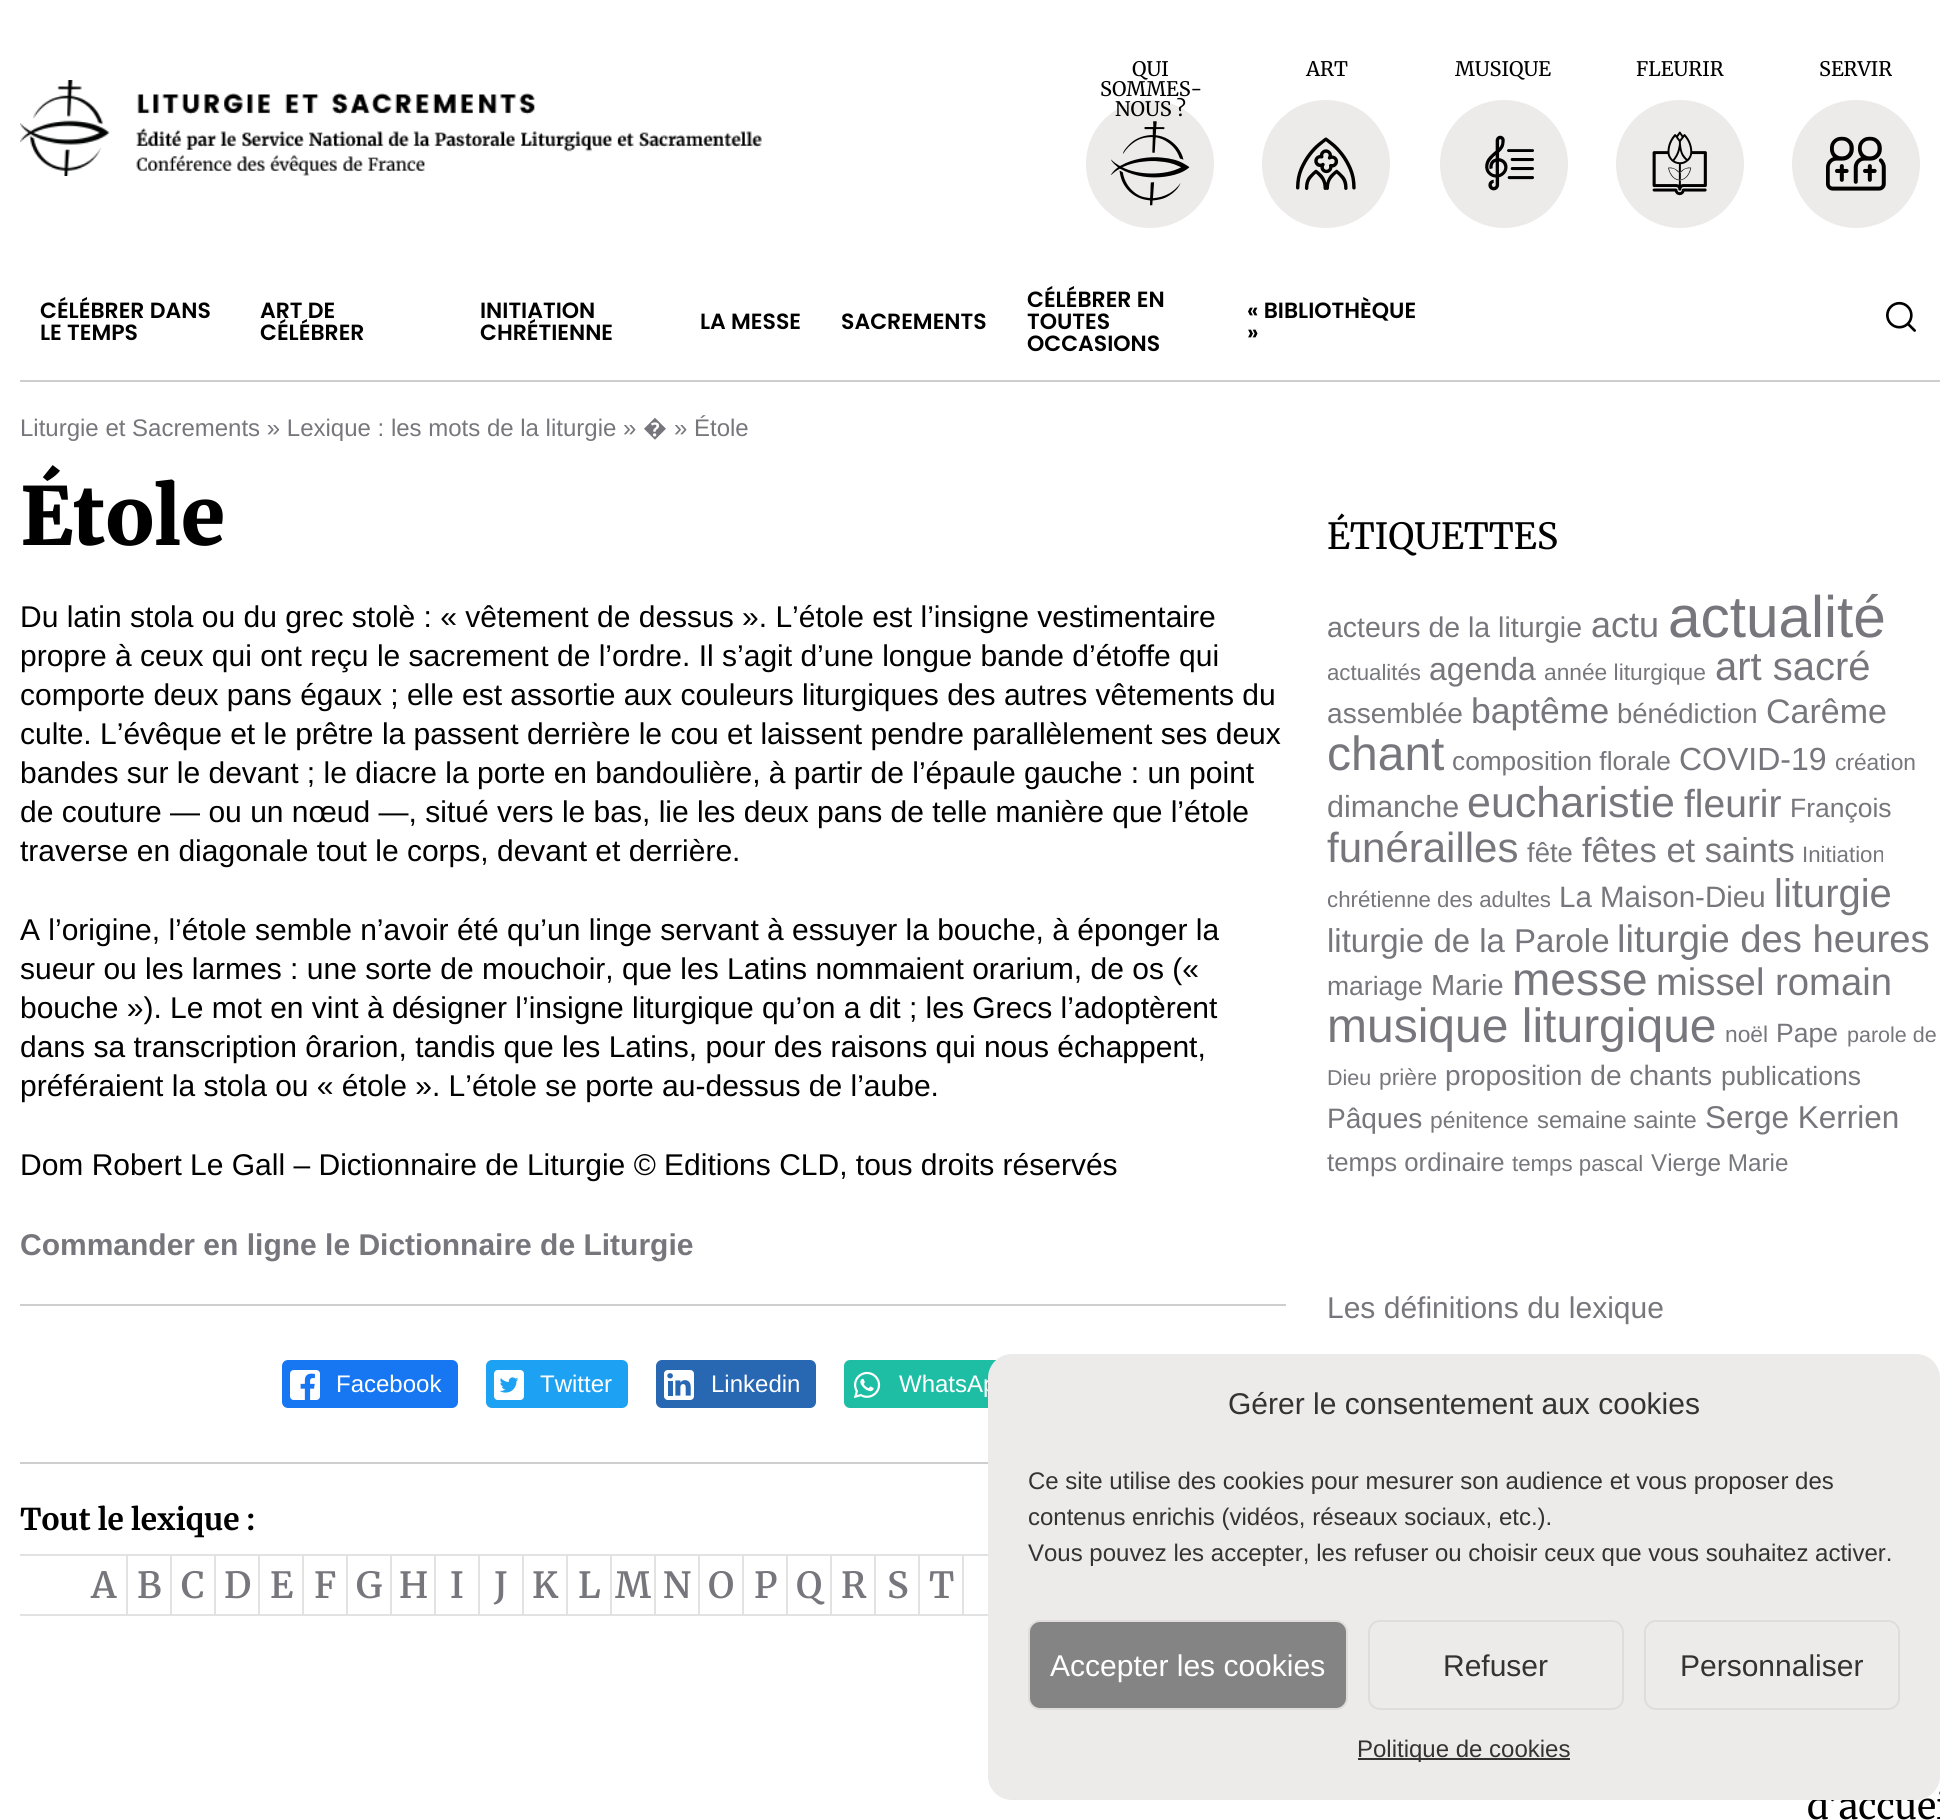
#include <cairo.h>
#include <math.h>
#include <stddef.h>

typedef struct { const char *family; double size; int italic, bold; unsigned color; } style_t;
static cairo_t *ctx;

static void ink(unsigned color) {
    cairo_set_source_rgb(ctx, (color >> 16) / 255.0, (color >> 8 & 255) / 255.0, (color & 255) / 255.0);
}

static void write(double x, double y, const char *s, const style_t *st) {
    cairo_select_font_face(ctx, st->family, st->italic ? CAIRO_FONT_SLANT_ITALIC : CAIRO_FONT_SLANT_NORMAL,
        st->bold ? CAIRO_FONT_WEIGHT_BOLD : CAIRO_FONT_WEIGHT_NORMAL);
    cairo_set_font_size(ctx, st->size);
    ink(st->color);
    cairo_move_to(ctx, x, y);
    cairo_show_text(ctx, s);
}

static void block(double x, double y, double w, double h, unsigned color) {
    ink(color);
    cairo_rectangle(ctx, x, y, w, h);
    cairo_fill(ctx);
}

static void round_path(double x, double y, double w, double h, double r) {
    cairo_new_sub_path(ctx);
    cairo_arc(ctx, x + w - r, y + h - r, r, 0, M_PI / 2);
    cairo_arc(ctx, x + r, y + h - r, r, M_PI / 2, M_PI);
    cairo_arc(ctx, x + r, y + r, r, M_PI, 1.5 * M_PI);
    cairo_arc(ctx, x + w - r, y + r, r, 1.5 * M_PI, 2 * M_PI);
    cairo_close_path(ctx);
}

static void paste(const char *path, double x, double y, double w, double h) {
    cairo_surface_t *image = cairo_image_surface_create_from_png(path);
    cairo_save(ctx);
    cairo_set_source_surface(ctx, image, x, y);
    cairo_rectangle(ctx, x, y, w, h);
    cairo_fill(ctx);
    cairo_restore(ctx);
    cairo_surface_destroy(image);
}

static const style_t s1 = {"Merriweather", 20, 0, 0, 0x000000};
static const style_t s2 = {"Poppins SemiBold", 22, 0, 0, 0x000000};
static const style_t s3 = {"Liberation Sans", 24, 0, 0, 0x76767c};
static const style_t s4 = {"Noto Sans", 24, 0, 0, 0x76767c};
static const style_t s5 = {"Merriweather Black", 80, 0, 0, 0x000000};
static const style_t s6 = {"Liberation Sans", 30, 0, 0, 0x000000};
static const style_t s7 = {"Liberation Sans", 30, 0, 1, 0x76767c};
static const style_t s8 = {"Liberation Sans", 24, 0, 0, 0xffffff};
static const style_t s9 = {"Merriweather", 30, 0, 1, 0x000000};
static const style_t s10 = {"Merriweather SemiBold", 36, 0, 0, 0x76767c};
static const style_t s11 = {"Merriweather", 36, 0, 0, 0x000000};
static const style_t s12 = {"Liberation Sans", 28.5, 0, 0, 0x76767c};
static const style_t s13 = {"Liberation Sans", 36, 0, 0, 0x76767c};
static const style_t s14 = {"Liberation Sans", 58.5, 0, 0, 0x76767c};
static const style_t s15 = {"Liberation Sans", 22.25, 0, 0, 0x76767c};
static const style_t s16 = {"Liberation Sans", 32, 0, 0, 0x76767c};
static const style_t s17 = {"Liberation Sans", 22.75, 0, 0, 0x76767c};
static const style_t s18 = {"Liberation Sans", 40, 0, 0, 0x76767c};
static const style_t s19 = {"Liberation Sans", 28.1, 0, 0, 0x76767c};
static const style_t s20 = {"Liberation Sans", 35.5, 0, 0, 0x76767c};
static const style_t s21 = {"Liberation Sans", 27.5, 0, 0, 0x76767c};
static const style_t s22 = {"Liberation Sans", 34, 0, 0, 0x76767c};
static const style_t s23 = {"Liberation Sans", 48, 0, 0, 0x76767c};
static const style_t s24 = {"Liberation Sans", 26.25, 0, 0, 0x76767c};
static const style_t s25 = {"Liberation Sans", 30.5, 0, 0, 0x76767c};
static const style_t s26 = {"Liberation Sans", 43, 0, 0, 0x76767c};
static const style_t s27 = {"Liberation Sans", 39, 0, 0, 0x76767c};
static const style_t s28 = {"Liberation Sans", 26.5, 0, 0, 0x76767c};
static const style_t s29 = {"Liberation Sans", 42, 0, 0, 0x76767c};
static const style_t s30 = {"Liberation Sans", 34.5, 0, 0, 0x76767c};
static const style_t s31 = {"Liberation Sans", 29.5, 0, 0, 0x76767c};
static const style_t s32 = {"Liberation Sans", 33, 0, 0, 0x76767c};
static const style_t s33 = {"Liberation Sans", 38.25, 0, 0, 0x76767c};
static const style_t s34 = {"Liberation Sans", 29, 0, 0, 0x76767c};
static const style_t s35 = {"Liberation Sans", 46, 0, 0, 0x76767c};
static const style_t s36 = {"Liberation Sans", 21.5, 0, 0, 0x76767c};
static const style_t s37 = {"Liberation Sans", 23.75, 0, 0, 0x76767c};
static const style_t s38 = {"Liberation Sans", 31.5, 0, 0, 0x76767c};
static const style_t s39 = {"Liberation Sans", 25.75, 0, 0, 0x76767c};
static const style_t s40 = {"Liberation Sans", 24.25, 0, 0, 0x76767c};
static const style_t s41 = {"Liberation Sans", 30, 0, 0, 0x76767c};
static const style_t s42 = {"Liberation Sans", 30, 0, 0, 0x333333};
static const style_t s43 = {"Liberation Sans", 24, 0, 0, 0x333333};
static const style_t s44 = {"Liberation Sans", 30, 0, 0, 0xffffff};

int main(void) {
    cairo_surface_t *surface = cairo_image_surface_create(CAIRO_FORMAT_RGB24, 1960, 1820);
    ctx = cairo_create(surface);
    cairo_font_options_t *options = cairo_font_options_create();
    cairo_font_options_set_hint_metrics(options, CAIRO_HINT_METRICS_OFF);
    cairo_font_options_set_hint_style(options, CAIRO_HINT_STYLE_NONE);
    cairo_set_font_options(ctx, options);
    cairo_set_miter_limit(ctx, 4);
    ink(0xffffff);
    cairo_paint(ctx);
    paste("pic1.png", 20, 80, 742, 96);
    write(1132, 76, "QUI", &s1);
    write(1100, 96, "SOMMES-", &s1);
    ink(0xedeaea);
    cairo_new_path(ctx);
    cairo_arc(ctx, 1150, 164, 64, 0, 2 * M_PI);
    cairo_fill(ctx);
    write(1115, 116, "NOUS ?", &s1);
    paste("pic2.png", 1110, 121, 80, 85);
    write(1306, 76, "ART", &s1);
    ink(0xedeaea);
    cairo_new_path(ctx);
    cairo_arc(ctx, 1326, 164, 64, 0, 2 * M_PI);
    cairo_fill(ctx);
    paste("pic3.png", 1296, 137, 60, 53);
    write(1455, 76, "MUSIQUE", &s1);
    ink(0xedeaea);
    cairo_new_path(ctx);
    cairo_arc(ctx, 1504, 164, 64, 0, 2 * M_PI);
    cairo_fill(ctx);
    paste("pic4.png", 1485, 135, 49, 56);
    write(1636, 76, "FLEURIR", &s1);
    ink(0xedeaea);
    cairo_new_path(ctx);
    cairo_arc(ctx, 1680, 164, 64, 0, 2 * M_PI);
    cairo_fill(ctx);
    paste("pic5.png", 1652, 131, 55, 65);
    write(1819, 76, "SERVIR", &s1);
    ink(0xedeaea);
    cairo_new_path(ctx);
    cairo_arc(ctx, 1856, 164, 64, 0, 2 * M_PI);
    cairo_fill(ctx);
    paste("pic6.png", 1826, 136, 60, 55);
    write(40, 318, "CÉLÉBRER DANS", &s2);
    write(40, 340, "LE TEMPS", &s2);
    write(260, 318, "ART DE", &s2);
    write(260, 340, "CÉLÉBRER", &s2);
    write(480, 318, "INITIATION", &s2);
    write(480, 340, "CHRÉTIENNE", &s2);
    write(700, 329, "LA MESSE", &s2);
    write(841, 329, "SACREMENTS", &s2);
    write(1027, 307, "CÉLÉBRER EN", &s2);
    write(1027, 329, "TOUTES", &s2);
    write(1027, 351, "OCCASIONS", &s2);
    write(1247, 318, "« BIBLIOTHÈQUE", &s2);
    write(1247, 340, "»", &s2);
    block(20, 380, 1920, 2, 0xcecece);
    write(20, 436, "Liturgie et Sacrements » Lexique : les mots de la liturgie »", &s3);
    write(643, 436, "�", &s4);
    write(674, 436, "» Étole", &s3);
    write(20, 545, "Étole", &s5);
    write(20, 627, "Du latin stola ou du grec stolè : « vêtement de dessus ». L’étole est l’insigne vestimentaire", &s6);
    write(20, 666, "propre à ceux qui ont reçu le sacrement de l’ordre. Il s’agit d’une longue bande d’étoffe qui", &s6);
    write(20, 705, "comporte deux pans égaux ; elle est assortie aux couleurs liturgiques des autres vêtements du", &s6);
    write(20, 744, "culte. L’évêque et le prêtre la passent derrière le cou et laissent pendre parallèlement ses deux", &s6);
    write(20, 783, "bandes sur le devant ; le diacre la porte en bandoulière, à partir de l’épaule gauche : un point", &s6);
    write(20, 822, "de couture — ou un nœud —, situé vers le bas, lie les deux pans de telle manière que l’étole", &s6);
    write(20, 861, "traverse en diagonale tout le corps, devant et derrière.", &s6);
    write(20, 940, "A l’origine, l’étole semble n’avoir été qu’un linge servant à essuyer la bouche, à éponger la", &s6);
    write(20, 979, "sueur ou les larmes : une sorte de mouchoir, que les Latins nommaient orarium, de os («", &s6);
    write(20, 1018, "bouche »). Le mot en vint à désigner l’insigne liturgique qu’on a dit ; les Grecs l’adoptèrent", &s6);
    write(20, 1057, "dans sa transcription ôrarion, tandis que les Latins, pour des raisons qui nous échappent,", &s6);
    write(20, 1096, "préféraient la stola ou « étole ». L’étole se porte au-dessus de l’aube.", &s6);
    write(20, 1175, "Dom Robert Le Gall – Dictionnaire de Liturgie © Editions CLD, tous droits réservés", &s6);
    write(20, 1255, "Commander en ligne le Dictionnaire de Liturgie", &s7);
    block(20, 1304, 1266, 2, 0xcecece);
    block(20, 1462, 968, 2, 0xcecece);
    ink(0x1777f2);
    round_path(282, 1360, 176, 48, 6);
    cairo_fill(ctx);
    paste("pic7.png", 290, 1370, 30, 30);
    write(336, 1392, "Facebook", &s8);
    ink(0x1da1f2);
    round_path(486, 1360, 142, 48, 6);
    cairo_fill(ctx);
    paste("pic8.png", 494, 1370, 30, 30);
    write(540, 1392, "Twitter", &s8);
    ink(0x2867b2);
    round_path(656, 1360, 160, 48, 6);
    cairo_fill(ctx);
    paste("pic9.png", 664, 1370, 30, 30);
    write(711, 1392, "Linkedin", &s8);
    ink(0x1ebea5);
    round_path(844, 1360, 182, 48, 6);
    cairo_fill(ctx);
    paste("pic10.png", 854, 1371, 27, 27);
    write(899, 1392, "WhatsAp", &s8);
    write(20, 1530, "Tout le lexique :", &s9);
    block(20, 1554, 968, 2, 0xe2e2e2);
    block(20, 1614, 968, 2, 0xe2e2e2);
    write(91, 1598, "A", &s10);
    block(126, 1556, 2, 58, 0xe2e2e2);
    write(137, 1598, "B", &s10);
    block(170, 1556, 2, 58, 0xe2e2e2);
    write(181, 1598, "C", &s10);
    block(214, 1556, 2, 58, 0xe2e2e2);
    write(224, 1598, "D", &s10);
    block(258, 1556, 2, 58, 0xe2e2e2);
    write(270, 1598, "E", &s10);
    block(302, 1556, 2, 58, 0xe2e2e2);
    write(314, 1598, "F", &s10);
    block(346, 1556, 2, 58, 0xe2e2e2);
    write(356, 1598, "G", &s10);
    block(390, 1556, 2, 58, 0xe2e2e2);
    write(399, 1598, "H", &s10);
    block(434, 1556, 2, 58, 0xe2e2e2);
    write(450, 1598, "I", &s10);
    block(478, 1556, 2, 58, 0xe2e2e2);
    write(494, 1598, "J", &s10);
    block(522, 1556, 2, 58, 0xe2e2e2);
    write(532, 1598, "K", &s10);
    block(566, 1556, 2, 58, 0xe2e2e2);
    write(578, 1598, "L", &s10);
    block(610, 1556, 2, 58, 0xe2e2e2);
    write(615, 1598, "M", &s10);
    block(654, 1556, 2, 58, 0xe2e2e2);
    write(663, 1598, "N", &s10);
    block(698, 1556, 2, 58, 0xe2e2e2);
    write(708, 1598, "O", &s10);
    block(742, 1556, 2, 58, 0xe2e2e2);
    write(754, 1598, "P", &s10);
    block(786, 1556, 2, 58, 0xe2e2e2);
    write(796, 1598, "Q", &s10);
    block(830, 1556, 2, 58, 0xe2e2e2);
    write(841, 1598, "R", &s10);
    block(874, 1556, 2, 58, 0xe2e2e2);
    write(887, 1598, "S", &s10);
    block(918, 1556, 2, 58, 0xe2e2e2);
    write(929, 1598, "T", &s10);
    block(962, 1556, 2, 58, 0xe2e2e2);
    write(1327, 549, "ÉTIQUETTES", &s11);
    write(1327, 637, "acteurs de la liturgie", &s12);
    write(1591, 637, "actu", &s13);
    write(1668, 637, "actualité", &s14);
    write(1327, 680, "actualités", &s15);
    write(1429, 680, "agenda", &s16);
    write(1544, 680, "année liturgique", &s17);
    write(1715, 680, "art sacré", &s18);
    write(1327, 723, "assemblée", &s19);
    write(1471, 723, "baptême", &s20);
    write(1617, 723, "bénédiction", &s21);
    write(1766, 723, "Carême", &s22);
    write(1327, 770, "chant", &s23);
    write(1452, 770, "composition florale", &s24);
    write(1679, 770, "COVID-19", &s16);
    write(1835, 770, "création", &s17);
    write(1327, 817, "dimanche", &s25);
    write(1467, 817, "eucharistie", &s26);
    write(1684, 817, "fleurir", &s27);
    write(1790, 817, "François", &s28);
    write(1327, 862, "funérailles", &s29);
    write(1527, 862, "fête", &s21);
    write(1582, 862, "fêtes et saints", &s30);
    write(1802, 862, "Initiation", &s15);
    write(1327, 907, "chrétienne des adultes", &s15);
    write(1559, 907, "La Maison-Dieu", &s31);
    write(1774, 907, "liturgie", &s18);
    write(1327, 952, "liturgie de la Parole", &s32);
    write(1617, 952, "liturgie des heures", &s33);
    write(1327, 995, "mariage", &s28);
    write(1431, 995, "Marie", &s34);
    write(1512, 995, "messe", &s35);
    write(1656, 995, "missel romain", &s33);
    write(1327, 1042, "musique liturgique", &s23);
    write(1725, 1042, "noël", &s17);
    write(1776, 1042, "Pape", &s28);
    write(1847, 1042, "parole de", &s36);
    write(1327, 1085, "Dieu", &s36);
    write(1379, 1085, "prière", &s17);
    write(1445, 1085, "proposition de chants", &s19);
    write(1721, 1085, "publications", &s28);
    write(1327, 1128, "Pâques", &s19);
    write(1430, 1128, "pénitence", &s17);
    write(1537, 1128, "semaine sainte", &s37);
    write(1705, 1128, "Serge Kerrien", &s38);
    write(1327, 1171, "temps ordinaire", &s39);
    write(1512, 1171, "temps pascal", &s15);
    write(1651, 1171, "Vierge Marie", &s40);
    write(1327, 1318, "Les définitions du lexique", &s41);
    cairo_save(ctx);
    cairo_rectangle(ctx, 1326, 1470, 614, 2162);
    cairo_clip(ctx);
    write(1807, 1819, "d’accuei", &s11);
    cairo_restore(ctx);
    paste("pic11.png", 1886, 301, 30, 31);
    ink(0xedeaea);
    round_path(988, 1354, 952, 446, 24);
    cairo_fill(ctx);
    write(1228, 1414, "Gérer le consentement aux cookies", &s42);
    write(1028, 1489, "Ce site utilise des cookies pour mesurer son audience et vous proposer des", &s43);
    write(1028, 1525, "contenus enrichis (vidéos, réseaux sociaux, etc.).", &s43);
    write(1028, 1561, "Vous pouvez les accepter, les refuser ou choisir ceux que vous souhaitez activer.", &s43);
    ink(0x848484);
    round_path(1029, 1621, 318, 88, 11);
    cairo_fill_preserve(ctx);
    ink(0xe1dcdc);
    cairo_stroke(ctx);
    write(1050, 1676, "Accepter les cookies", &s44);
    round_path(1369, 1621, 254, 88, 11);
    ink(0xe1dcdc);
    cairo_stroke(ctx);
    write(1443, 1676, "Refuser", &s42);
    round_path(1645, 1621, 254, 88, 11);
    ink(0xe1dcdc);
    cairo_stroke(ctx);
    write(1680, 1676, "Personnaliser", &s42);
    block(1358, 1758, 212, 2, 0x333333);
    write(1357, 1757, "Politique de cookies", &s43);
    cairo_surface_write_to_png(surface, "screenshot.png");
    cairo_font_options_destroy(options);
    cairo_destroy(ctx);
    cairo_surface_destroy(surface);
    return 0;
}
